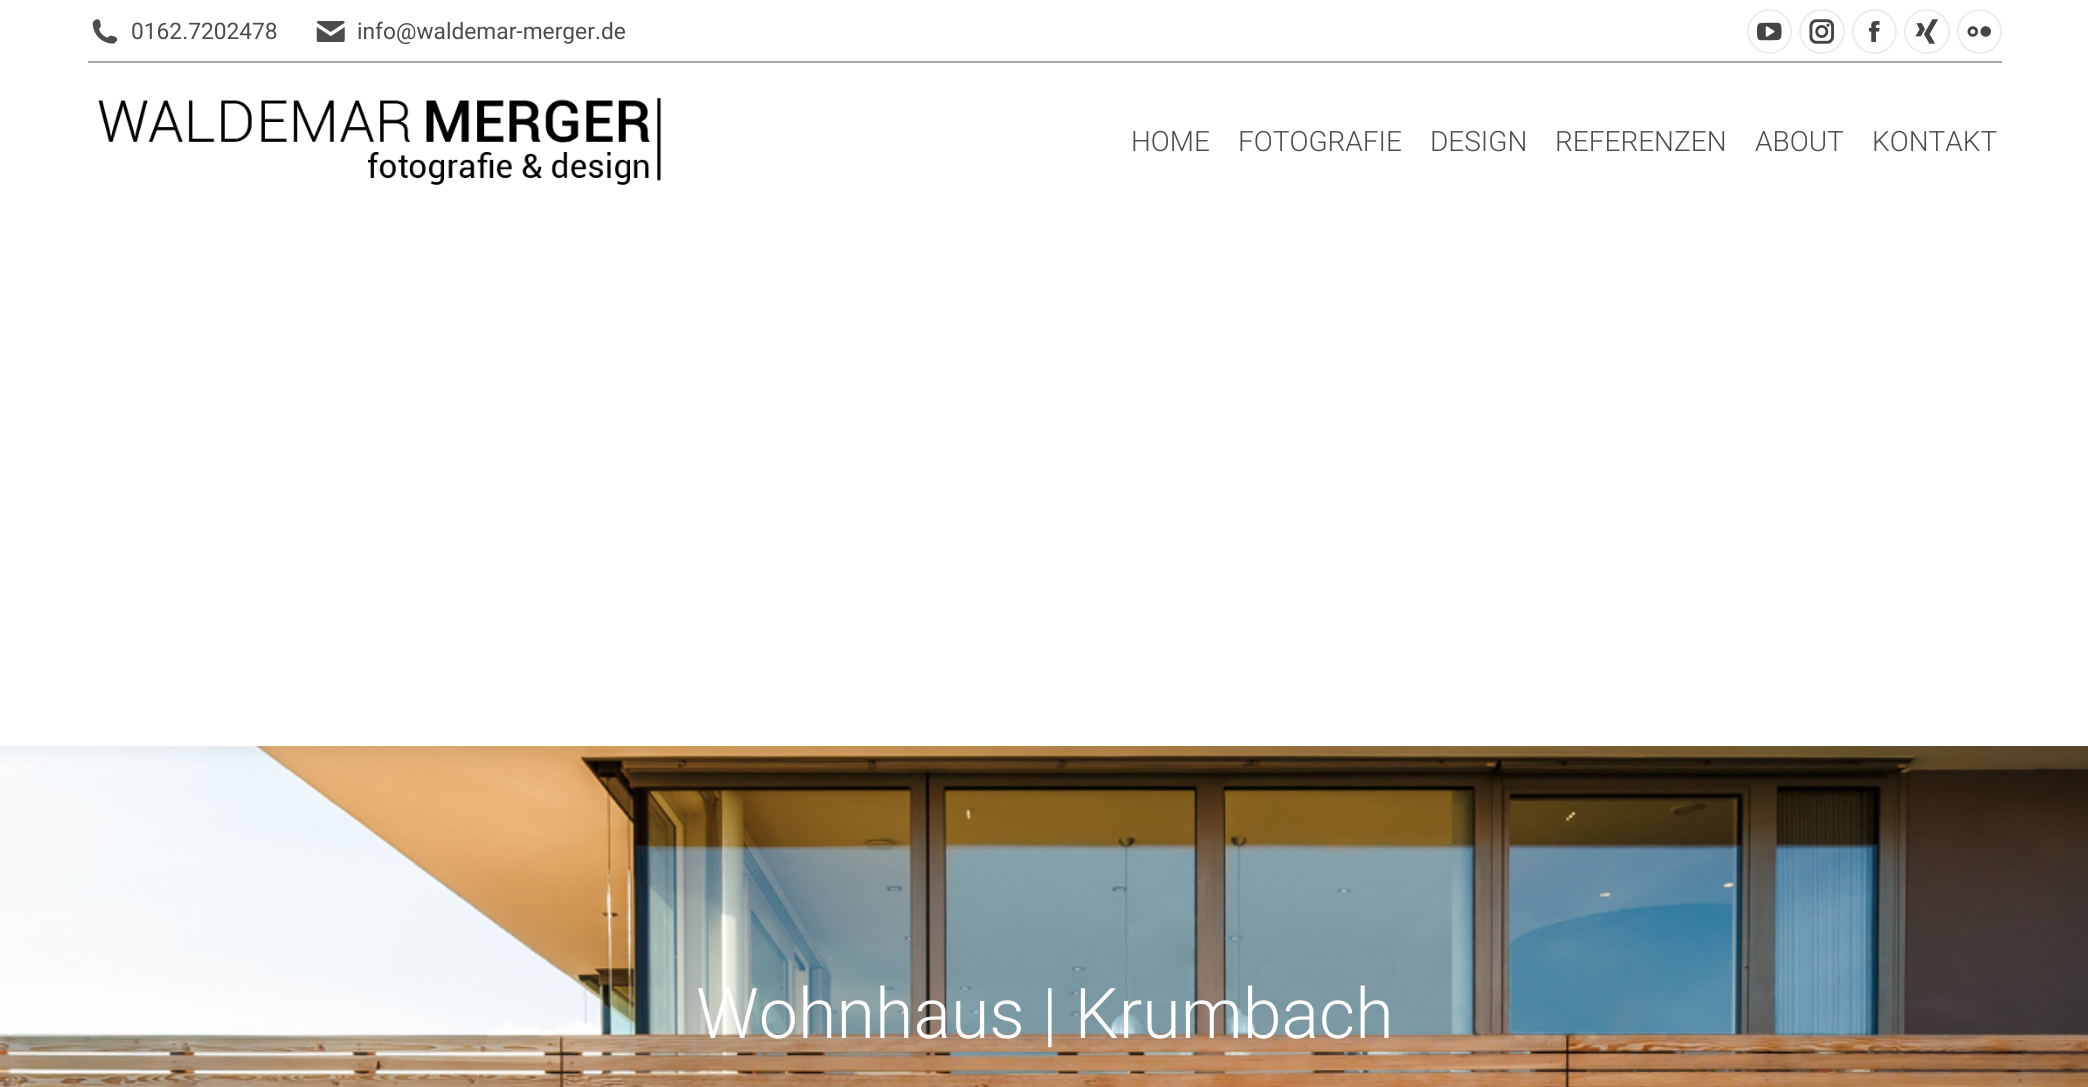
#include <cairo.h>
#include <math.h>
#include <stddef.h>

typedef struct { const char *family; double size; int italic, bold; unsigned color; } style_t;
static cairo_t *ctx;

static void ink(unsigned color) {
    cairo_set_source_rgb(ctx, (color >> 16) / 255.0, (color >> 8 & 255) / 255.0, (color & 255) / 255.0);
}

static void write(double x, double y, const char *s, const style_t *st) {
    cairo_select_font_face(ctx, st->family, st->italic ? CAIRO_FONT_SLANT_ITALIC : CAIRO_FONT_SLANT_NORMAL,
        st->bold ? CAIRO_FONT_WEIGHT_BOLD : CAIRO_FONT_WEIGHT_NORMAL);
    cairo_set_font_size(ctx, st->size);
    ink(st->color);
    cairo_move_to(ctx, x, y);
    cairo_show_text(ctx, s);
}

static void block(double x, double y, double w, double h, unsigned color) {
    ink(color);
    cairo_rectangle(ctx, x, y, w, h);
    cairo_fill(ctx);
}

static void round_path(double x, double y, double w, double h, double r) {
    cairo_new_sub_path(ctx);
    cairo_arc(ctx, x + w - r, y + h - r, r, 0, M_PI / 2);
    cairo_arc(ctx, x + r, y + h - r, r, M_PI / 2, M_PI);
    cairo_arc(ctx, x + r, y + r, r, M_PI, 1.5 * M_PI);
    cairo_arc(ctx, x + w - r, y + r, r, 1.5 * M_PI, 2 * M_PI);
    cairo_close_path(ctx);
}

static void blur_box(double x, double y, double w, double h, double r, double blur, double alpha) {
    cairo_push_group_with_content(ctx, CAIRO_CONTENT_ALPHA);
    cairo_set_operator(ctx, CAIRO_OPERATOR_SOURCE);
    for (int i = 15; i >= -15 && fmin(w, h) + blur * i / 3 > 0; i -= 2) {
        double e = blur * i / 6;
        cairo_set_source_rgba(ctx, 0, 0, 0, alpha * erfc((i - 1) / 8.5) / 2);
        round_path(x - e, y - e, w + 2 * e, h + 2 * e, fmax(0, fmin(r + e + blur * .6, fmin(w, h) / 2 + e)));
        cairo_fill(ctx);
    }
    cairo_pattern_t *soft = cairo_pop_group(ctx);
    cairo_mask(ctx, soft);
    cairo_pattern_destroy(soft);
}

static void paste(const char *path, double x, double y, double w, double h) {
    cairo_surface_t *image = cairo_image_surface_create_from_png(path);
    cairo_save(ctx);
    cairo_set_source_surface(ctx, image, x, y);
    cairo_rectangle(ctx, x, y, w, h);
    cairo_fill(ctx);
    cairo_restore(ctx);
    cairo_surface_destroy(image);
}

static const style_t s1 = {"Roboto", 22.75, 0, 0, 0x4c4c4c};
static const style_t s2 = {"Roboto Light", 28, 0, 0, 0x4c4c4c};
static const style_t s3 = {"Roboto Light", 70, 0, 0, 0xffffff};

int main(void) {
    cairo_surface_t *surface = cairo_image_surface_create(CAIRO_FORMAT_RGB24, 2088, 1087);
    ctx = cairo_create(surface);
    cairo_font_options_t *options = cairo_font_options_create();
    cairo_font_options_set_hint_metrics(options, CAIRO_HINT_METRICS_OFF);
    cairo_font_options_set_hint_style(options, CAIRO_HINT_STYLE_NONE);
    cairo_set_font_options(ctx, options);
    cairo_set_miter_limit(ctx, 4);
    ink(0xffffff);
    cairo_paint(ctx);
    paste("pic9.png", 0, 746, 2088, 341);
    ink(0x000000);
    blur_box(-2, -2, 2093, 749, 0, 13, 0.07);
    block(0, 0, 2088, 746, 0xffffff);
    paste("pic1.png", 92, 19, 26, 25);
    write(131, 39, "0162.7202478", &s1);
    paste("pic2.png", 316, 21, 29, 21);
    write(357, 39, "info@waldemar-merger.de", &s1);
    cairo_new_path(ctx);
    cairo_arc(ctx, 1769.5, 31.5, 21.5, 0, 2 * M_PI);
    ink(0xededed);
    cairo_stroke(ctx);
    paste("pic3.png", 1757, 22, 25, 19);
    round_path(1800, 10, 44, 43, 21.5);
    cairo_stroke(ctx);
    paste("pic4.png", 1809, 19, 25, 25);
    cairo_arc(ctx, 1874.5, 31.5, 21.5, 0, 2 * M_PI);
    cairo_stroke(ctx);
    paste("pic5.png", 1868, 21, 12, 21);
    round_path(1905, 10, 44, 43, 21.5);
    cairo_stroke(ctx);
    paste("pic6.png", 1915, 19, 23, 25);
    cairo_arc(ctx, 1979.5, 31.5, 21.5, 0, 2 * M_PI);
    cairo_stroke(ctx);
    paste("pic7.png", 1967, 26, 24, 11);
    block(88, 61, 1914, 2, 0xa6a6a6);
    paste("pic8.png", 98, 98, 563, 87);
    write(1131, 151, "HOME", &s2);
    write(1238, 151, "FOTOGRAFIE", &s2);
    write(1430, 151, "DESIGN", &s2);
    write(1555, 151, "REFERENZEN", &s2);
    write(1755, 151, "ABOUT", &s2);
    write(1872, 151, "KONTAKT", &s2);
    write(696, 1038, "Wohnhaus | Krumbach", &s3);
    cairo_surface_write_to_png(surface, "screenshot.png");
    cairo_font_options_destroy(options);
    cairo_destroy(ctx);
    cairo_surface_destroy(surface);
    return 0;
}
